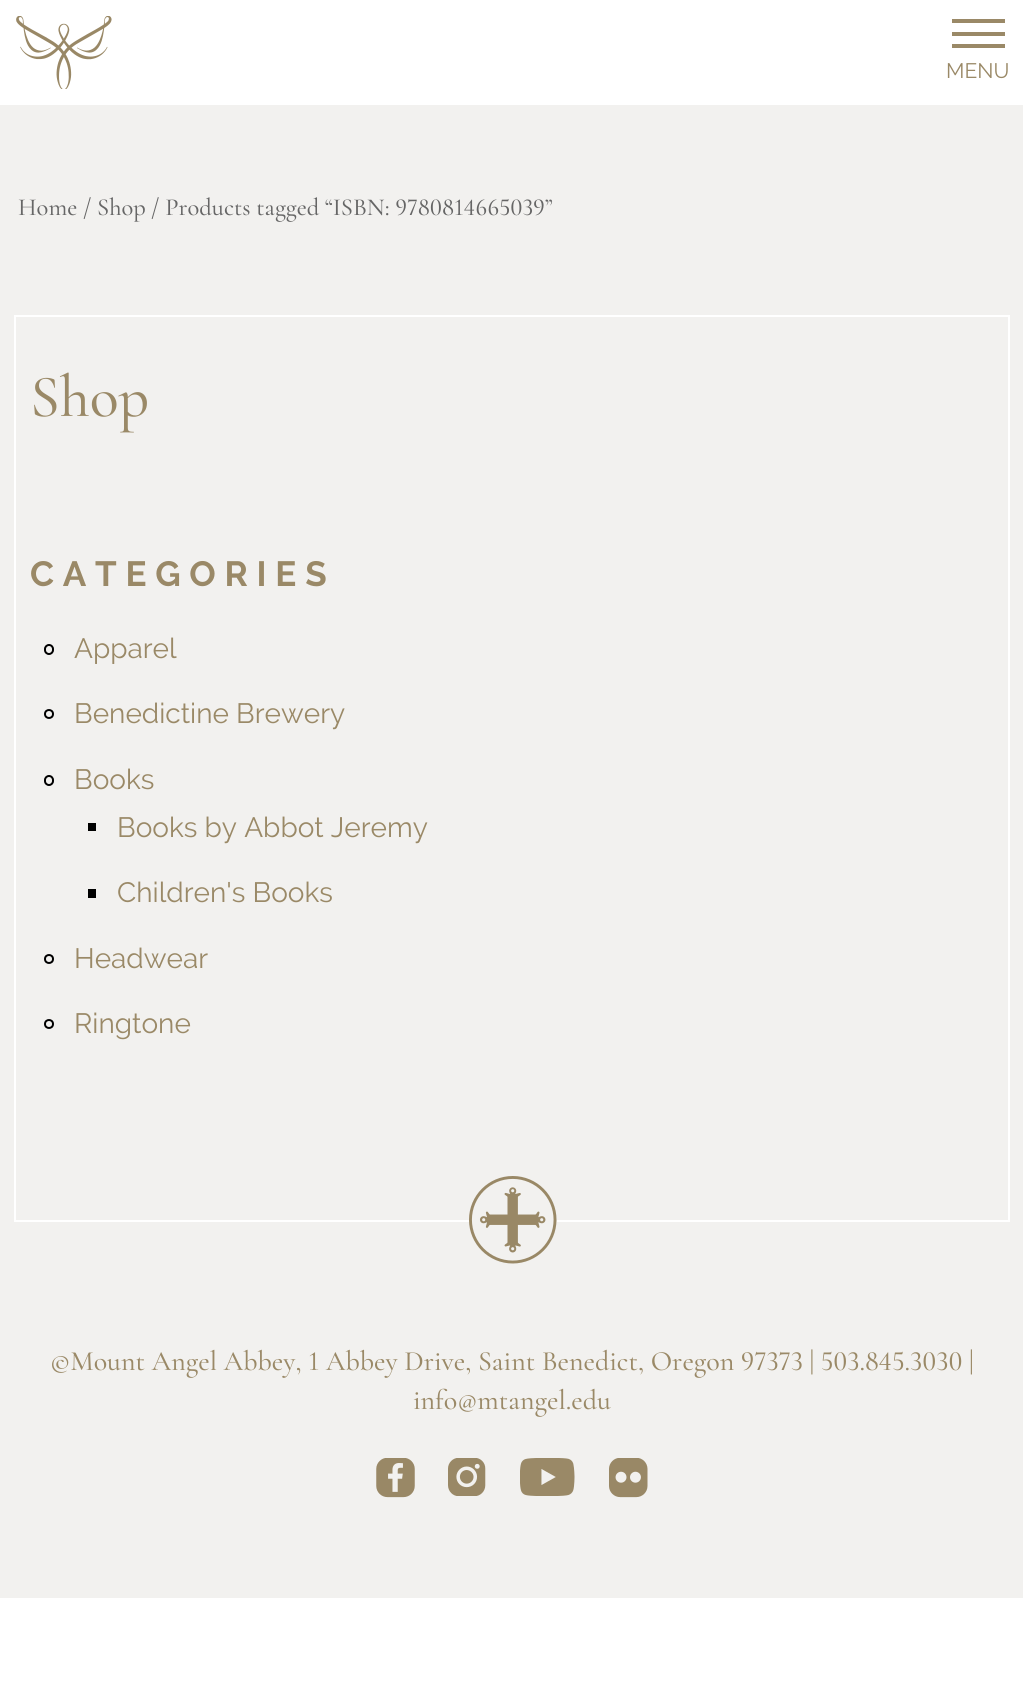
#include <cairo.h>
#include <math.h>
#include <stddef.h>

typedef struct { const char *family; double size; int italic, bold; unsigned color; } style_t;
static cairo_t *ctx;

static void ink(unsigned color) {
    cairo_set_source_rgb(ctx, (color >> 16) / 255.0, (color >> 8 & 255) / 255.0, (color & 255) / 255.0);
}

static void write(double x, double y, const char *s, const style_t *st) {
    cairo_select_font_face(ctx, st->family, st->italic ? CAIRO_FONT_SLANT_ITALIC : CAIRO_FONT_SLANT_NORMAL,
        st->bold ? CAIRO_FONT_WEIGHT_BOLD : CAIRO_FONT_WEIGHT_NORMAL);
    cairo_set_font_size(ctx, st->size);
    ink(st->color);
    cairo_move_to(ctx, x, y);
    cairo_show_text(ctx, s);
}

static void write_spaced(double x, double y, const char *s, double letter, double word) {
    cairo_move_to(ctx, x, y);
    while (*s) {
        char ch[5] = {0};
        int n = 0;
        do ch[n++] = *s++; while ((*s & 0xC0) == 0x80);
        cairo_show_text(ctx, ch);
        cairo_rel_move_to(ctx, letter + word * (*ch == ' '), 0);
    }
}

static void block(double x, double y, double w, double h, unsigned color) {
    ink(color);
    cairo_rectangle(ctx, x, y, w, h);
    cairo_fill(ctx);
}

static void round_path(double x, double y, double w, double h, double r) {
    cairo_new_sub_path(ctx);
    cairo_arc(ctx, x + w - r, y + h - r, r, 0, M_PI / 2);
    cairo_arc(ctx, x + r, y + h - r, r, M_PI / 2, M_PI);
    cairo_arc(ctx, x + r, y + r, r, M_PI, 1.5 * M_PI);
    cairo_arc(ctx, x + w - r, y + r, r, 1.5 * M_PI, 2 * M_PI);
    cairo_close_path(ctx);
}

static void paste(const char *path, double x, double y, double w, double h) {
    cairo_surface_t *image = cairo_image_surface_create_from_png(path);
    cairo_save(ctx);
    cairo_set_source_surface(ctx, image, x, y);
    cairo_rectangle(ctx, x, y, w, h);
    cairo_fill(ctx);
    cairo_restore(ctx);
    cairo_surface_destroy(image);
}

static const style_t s1 = {"Raleway", 21, 0, 0, 0x9a8967};
static const style_t s2 = {"Cormorant Garamond Medium", 24.5, 0, 0, 0x666666};
static const style_t s3 = {"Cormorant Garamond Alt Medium", 24.5, 0, 0, 0x666666};
static const style_t s4 = {"Cormorant Garamond Medium", 60, 0, 0, 0x9a8967};
static const style_t s5 = {"Raleway", 28, 0, 0, 0x9a8967};
static const style_t s6 = {"Cormorant Garamond Alt Medium", 28, 0, 0, 0x9a8967};
static const style_t s7 = {"Cormorant Garamond Medium", 28, 0, 0, 0x9a8967};

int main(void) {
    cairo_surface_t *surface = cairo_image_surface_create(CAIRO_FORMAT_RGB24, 1023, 1705);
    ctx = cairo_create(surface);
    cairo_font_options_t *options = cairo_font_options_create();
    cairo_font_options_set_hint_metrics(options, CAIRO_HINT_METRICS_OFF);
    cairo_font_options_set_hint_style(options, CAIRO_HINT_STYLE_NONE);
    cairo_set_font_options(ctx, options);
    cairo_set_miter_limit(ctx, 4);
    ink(0xffffff);
    cairo_paint(ctx);
    paste("pic1.png", 16, 16, 96, 73);
    block(952, 19, 53, 4, 0x9a8967);
    block(952, 32, 53, 4, 0x9a8967);
    block(952, 44, 53, 4, 0x9a8967);
    write(946, 78, "MENU", &s1);
    block(0, 105, 1023, 1117, 0xf2f1ef);
    write(18, 215, "Home / Shop", &s2);
    write(151, 215, "/ Products tagged “ISBN: 9780814665039”", &s3);
    cairo_rectangle(ctx, 15, 316, 994, 905);
    ink(0xffffff);
    cairo_stroke(ctx);
    write(30, 416, "Shop", &s4);
    cairo_select_font_face(ctx, "Raleway", CAIRO_FONT_SLANT_NORMAL, CAIRO_FONT_WEIGHT_BOLD);
    cairo_set_font_size(ctx, 35);
    write_spaced(30, 586, "CATEGORIES", 8.75, 0);
    round_path(45, 645, 8, 9, 4);
    ink(0x000000);
    cairo_stroke(ctx);
    write(74, 658, "Apparel", &s5);
    cairo_new_path(ctx);
    cairo_arc(ctx, 49, 714, 4, 0, 2 * M_PI);
    ink(0x000000);
    cairo_stroke(ctx);
    write(74, 723, "Benedictine Brewery", &s5);
    round_path(45, 776, 8, 9, 4);
    ink(0x000000);
    cairo_stroke(ctx);
    write(74, 789, "Books", &s5);
    block(88, 823, 8, 8, 0x000000);
    write(117, 837, "Books by Abbot Jeremy", &s5);
    block(88, 889, 8, 9, 0x000000);
    write(117, 902, "Children's Books", &s5);
    cairo_new_path(ctx);
    cairo_arc(ctx, 49, 959, 4, 0, 2 * M_PI);
    ink(0x000000);
    cairo_stroke(ctx);
    write(74, 968, "Headwear", &s5);
    cairo_new_path(ctx);
    cairo_arc(ctx, 49, 1024, 4, 0, 2 * M_PI);
    ink(0x000000);
    cairo_stroke(ctx);
    write(74, 1033, "Ringtone", &s5);
    block(469, 1220, 88, 2, 0xf2f1ef);
    block(0, 1222, 1023, 376, 0xf2f1ef);
    paste("pic2.png", 469, 1176, 88, 88);
    write(50, 1370, "©Mount Angel Abbey, 1 Abbey Drive, Saint Benedict, Oregon 97373 | 503.845.3030 |", &s6);
    write(413, 1409, "info@mtangel.edu", &s7);
    paste("pic3.png", 376, 1458, 39, 40);
    paste("pic4.png", 448, 1458, 38, 38);
    paste("pic5.png", 520, 1458, 55, 38);
    paste("pic6.png", 609, 1458, 39, 40);
    cairo_surface_write_to_png(surface, "screenshot.png");
    cairo_font_options_destroy(options);
    cairo_destroy(ctx);
    cairo_surface_destroy(surface);
    return 0;
}
